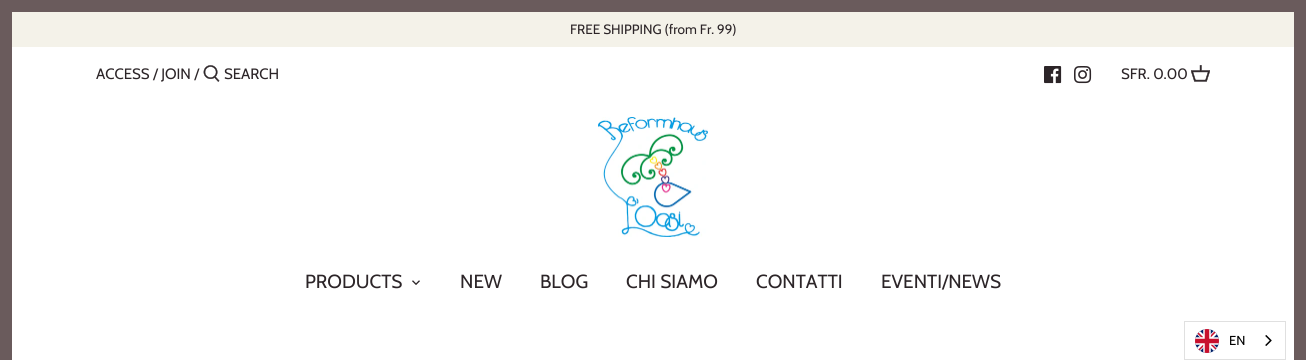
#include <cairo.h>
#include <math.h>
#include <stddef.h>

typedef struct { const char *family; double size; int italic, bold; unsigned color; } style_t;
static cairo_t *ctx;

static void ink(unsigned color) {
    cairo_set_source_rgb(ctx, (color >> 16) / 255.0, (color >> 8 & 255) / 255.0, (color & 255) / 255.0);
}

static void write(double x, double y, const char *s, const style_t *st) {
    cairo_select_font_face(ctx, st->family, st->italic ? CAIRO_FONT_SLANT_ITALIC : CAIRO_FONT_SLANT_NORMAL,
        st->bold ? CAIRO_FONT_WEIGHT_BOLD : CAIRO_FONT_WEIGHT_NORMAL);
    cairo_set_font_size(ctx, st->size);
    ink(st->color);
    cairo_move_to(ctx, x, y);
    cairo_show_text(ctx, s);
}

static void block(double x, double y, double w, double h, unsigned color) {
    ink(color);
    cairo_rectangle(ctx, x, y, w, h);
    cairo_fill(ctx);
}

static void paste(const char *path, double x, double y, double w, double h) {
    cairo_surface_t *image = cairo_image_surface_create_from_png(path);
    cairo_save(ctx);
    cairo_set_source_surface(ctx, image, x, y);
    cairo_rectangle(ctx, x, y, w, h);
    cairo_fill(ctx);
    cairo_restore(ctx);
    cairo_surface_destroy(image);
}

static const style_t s1 = {"Cabin", 13.5, 0, 0, 0x2c2528};
static const style_t s2 = {"Cabin", 15, 0, 0, 0x2c2528};
static const style_t s3 = {"Cabin", 19, 0, 0, 0x2c2528};
static const style_t s4 = {"Cabin", 13, 0, 0, 0x000000};

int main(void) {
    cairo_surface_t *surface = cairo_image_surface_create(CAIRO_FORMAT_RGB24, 1306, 360);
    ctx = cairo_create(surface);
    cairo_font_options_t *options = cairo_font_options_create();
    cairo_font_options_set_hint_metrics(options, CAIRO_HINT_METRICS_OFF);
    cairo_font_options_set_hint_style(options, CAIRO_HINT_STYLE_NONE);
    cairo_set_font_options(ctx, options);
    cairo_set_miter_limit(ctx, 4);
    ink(0xffffff);
    cairo_paint(ctx);
    cairo_rectangle(ctx, 6, 6, 1294, 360);
    ink(0x6a5b5c);
    cairo_set_line_width(ctx, 12);
    cairo_stroke(ctx);
    block(12, 12, 1282, 35, 0xf4f2e9);
    write(570, 34, "FREE SHIPPING (from Fr. 99)", &s1);
    write(96, 79, "ACCESS / JOIN /", &s2);
    paste("pic1.png", 203, 65, 17, 17);
    write(224, 79, "SEARCH", &s2);
    paste("pic2.png", 1044, 66, 18, 18);
    paste("pic3.png", 1074, 66, 18, 18);
    write(1121, 79, "SFR. 0.00", &s2);
    paste("pic4.png", 1191, 65, 19, 17);
    paste("pic5.png", 598, 117, 110, 120);
    write(305, 288, "PRODUCTS", &s3);
    paste("pic6.png", 412, 280, 8, 5);
    write(460, 288, "NEW", &s3);
    write(540, 288, "BLOG", &s3);
    write(626, 288, "CHI SIAMO", &s3);
    write(756, 288, "CONTATTI", &s3);
    write(881, 288, "EVENTI/NEWS", &s3);
    cairo_rectangle(ctx, 1184.5, 321.5, 101, 38);
    ink(0xe0e0e0);
    cairo_set_line_width(ctx, 1);
    cairo_stroke(ctx);
    paste("pic7.png", 1195, 329, 24, 24);
    write(1229, 345, "EN", &s4);
    paste("pic8.png", 1265, 335, 7, 11);
    cairo_surface_write_to_png(surface, "screenshot.png");
    cairo_font_options_destroy(options);
    cairo_destroy(ctx);
    cairo_surface_destroy(surface);
    return 0;
}
